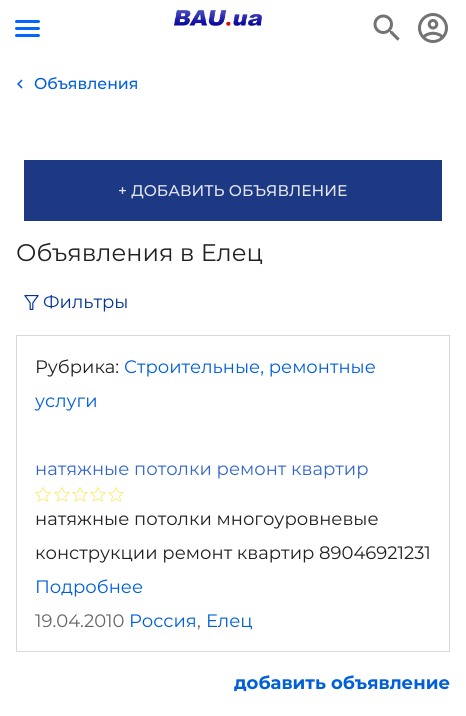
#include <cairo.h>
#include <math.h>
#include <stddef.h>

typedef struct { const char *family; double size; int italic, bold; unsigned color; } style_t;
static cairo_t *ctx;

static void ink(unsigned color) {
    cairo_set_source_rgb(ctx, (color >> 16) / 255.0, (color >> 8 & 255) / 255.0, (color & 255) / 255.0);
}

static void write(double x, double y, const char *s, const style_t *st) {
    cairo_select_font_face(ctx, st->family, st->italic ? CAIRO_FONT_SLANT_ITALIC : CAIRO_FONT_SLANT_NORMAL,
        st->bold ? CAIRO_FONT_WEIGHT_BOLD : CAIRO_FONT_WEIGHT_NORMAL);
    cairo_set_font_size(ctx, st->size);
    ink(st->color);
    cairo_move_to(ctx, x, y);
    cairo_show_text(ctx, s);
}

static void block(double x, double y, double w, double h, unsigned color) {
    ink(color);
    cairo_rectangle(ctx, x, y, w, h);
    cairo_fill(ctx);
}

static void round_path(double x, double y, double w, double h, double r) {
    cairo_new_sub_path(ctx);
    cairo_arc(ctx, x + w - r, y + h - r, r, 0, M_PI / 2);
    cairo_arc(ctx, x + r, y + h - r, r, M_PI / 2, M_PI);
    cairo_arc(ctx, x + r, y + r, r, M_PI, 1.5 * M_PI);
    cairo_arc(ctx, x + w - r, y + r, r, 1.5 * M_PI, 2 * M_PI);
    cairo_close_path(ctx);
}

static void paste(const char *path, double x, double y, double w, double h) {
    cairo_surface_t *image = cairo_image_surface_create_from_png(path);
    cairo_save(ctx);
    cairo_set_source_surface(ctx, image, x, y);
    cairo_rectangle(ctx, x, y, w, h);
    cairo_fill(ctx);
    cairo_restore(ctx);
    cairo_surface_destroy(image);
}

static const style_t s1 = {"Montserrat Medium", 15.75, 0, 0, 0x005fda};
static const style_t s2 = {"Montserrat Medium", 15.5, 0, 0, 0xe2e5ef};
static const style_t s3 = {"Montserrat", 24, 0, 0, 0x212121};
static const style_t s4 = {"Montserrat", 18, 0, 0, 0x003399};
static const style_t s5 = {"Montserrat", 18, 0, 0, 0x212121};
static const style_t s6 = {"Montserrat", 18, 0, 0, 0x005fda};
static const style_t s7 = {"Montserrat", 18, 0, 0, 0x3366cc};
static const style_t s8 = {"Montserrat", 18, 0, 0, 0x666666};
static const style_t s9 = {"Montserrat", 18, 0, 1, 0x005fda};

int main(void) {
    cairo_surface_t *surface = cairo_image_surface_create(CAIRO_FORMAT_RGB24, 466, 716);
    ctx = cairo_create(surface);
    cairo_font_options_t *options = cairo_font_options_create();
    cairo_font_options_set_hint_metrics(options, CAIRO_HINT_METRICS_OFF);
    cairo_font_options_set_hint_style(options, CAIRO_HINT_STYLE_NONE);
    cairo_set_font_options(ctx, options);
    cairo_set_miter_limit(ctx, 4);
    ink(0xffffff);
    cairo_paint(ctx);
    paste("pic1.png", 174, 10, 88, 16);
    ink(0x0066ff);
    round_path(15, 20, 25, 3, 1.5);
    cairo_fill(ctx);
    round_path(15, 27, 25, 3, 1.5);
    cairo_fill(ctx);
    round_path(15, 34, 25, 3, 1.5);
    cairo_fill(ctx);
    paste("pic2.png", 373, 14, 27, 27);
    paste("pic3.png", 418, 13, 30, 30);
    paste("pic4.png", 17, 79, 6, 10);
    write(34, 89, "Объявления", &s1);
    block(24, 160, 418, 61, 0x1e3984);
    write(118, 196, "+ ДОБАВИТЬ ОБЪЯВЛЕНИЕ", &s2);
    write(16, 261, "Объявления в Елец", &s3);
    paste("pic5.png", 24, 295, 15, 15);
    write(43, 308, "Фильтры", &s4);
    cairo_rectangle(ctx, 16.5, 335.5, 433, 316);
    ink(0xd8d8d8);
    cairo_set_line_width(ctx, 1);
    cairo_stroke(ctx);
    write(35, 373, "Рубрика:", &s5);
    write(124, 373, "Строительные, ремонтные", &s6);
    write(35, 407, "услуги", &s6);
    write(35, 475, "натяжные потолки ремонт квартир", &s7);
    paste("pic6.png", 35, 487, 16, 15);
    paste("pic6.png", 54, 487, 16, 15);
    paste("pic6.png", 72, 487, 16, 15);
    paste("pic6.png", 90, 487, 16, 15);
    paste("pic6.png", 108, 487, 16, 15);
    write(35, 525, "натяжные потолки многоуровневые", &s5);
    write(35, 559, "конструкции ремонт квартир 89046921231", &s5);
    write(35, 593, "Подробнее", &s6);
    write(35, 627, "19.04.2010", &s8);
    write(129, 627, "Россия", &s6);
    write(197, 627, ",", &s8);
    write(206, 627, "Елец", &s6);
    write(234, 689, "добавить объявление", &s9);
    cairo_surface_write_to_png(surface, "screenshot.png");
    cairo_font_options_destroy(options);
    cairo_destroy(ctx);
    cairo_surface_destroy(surface);
    return 0;
}
